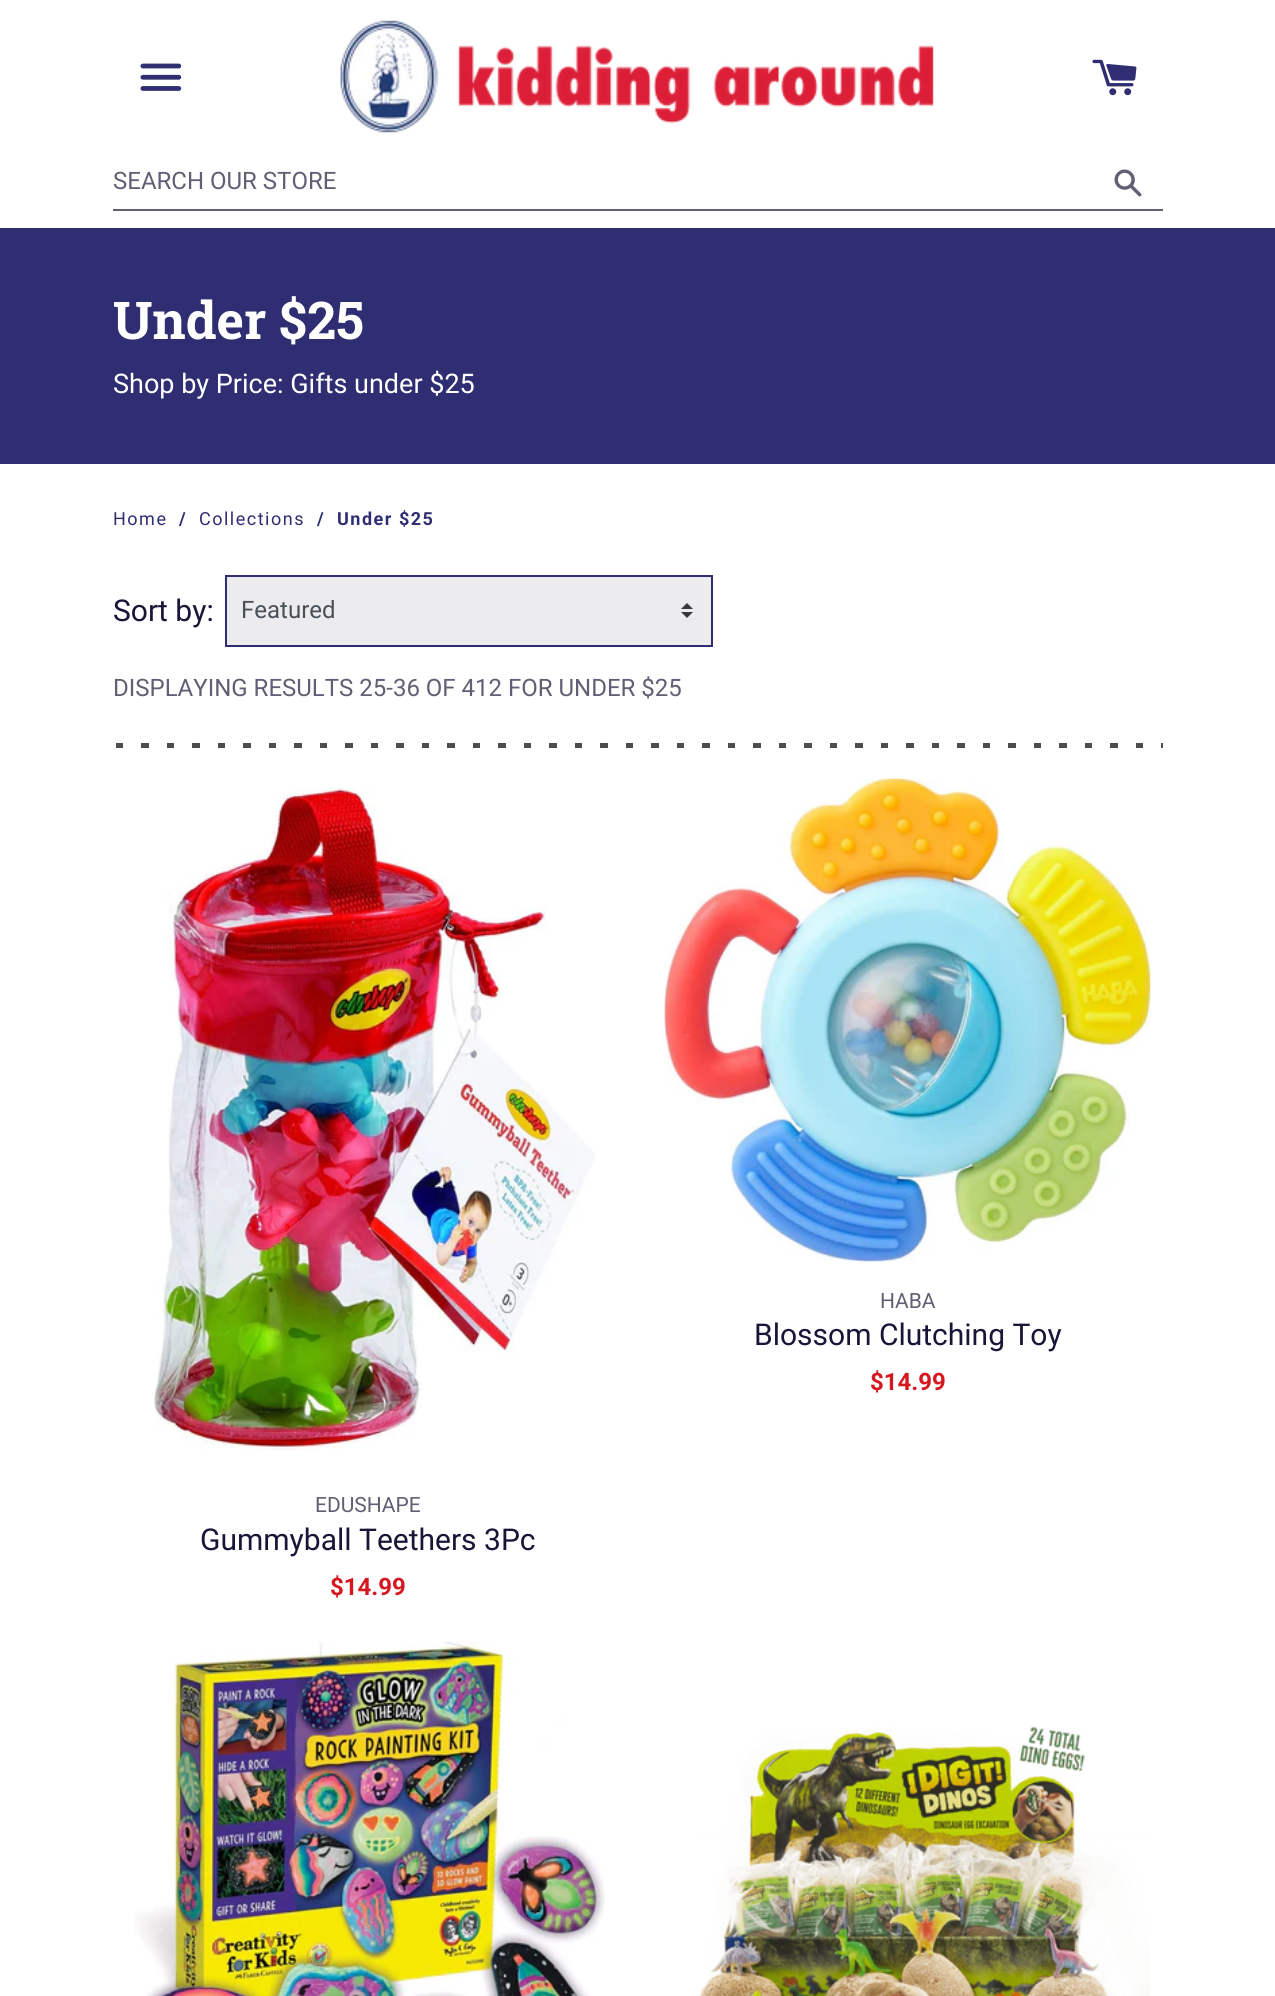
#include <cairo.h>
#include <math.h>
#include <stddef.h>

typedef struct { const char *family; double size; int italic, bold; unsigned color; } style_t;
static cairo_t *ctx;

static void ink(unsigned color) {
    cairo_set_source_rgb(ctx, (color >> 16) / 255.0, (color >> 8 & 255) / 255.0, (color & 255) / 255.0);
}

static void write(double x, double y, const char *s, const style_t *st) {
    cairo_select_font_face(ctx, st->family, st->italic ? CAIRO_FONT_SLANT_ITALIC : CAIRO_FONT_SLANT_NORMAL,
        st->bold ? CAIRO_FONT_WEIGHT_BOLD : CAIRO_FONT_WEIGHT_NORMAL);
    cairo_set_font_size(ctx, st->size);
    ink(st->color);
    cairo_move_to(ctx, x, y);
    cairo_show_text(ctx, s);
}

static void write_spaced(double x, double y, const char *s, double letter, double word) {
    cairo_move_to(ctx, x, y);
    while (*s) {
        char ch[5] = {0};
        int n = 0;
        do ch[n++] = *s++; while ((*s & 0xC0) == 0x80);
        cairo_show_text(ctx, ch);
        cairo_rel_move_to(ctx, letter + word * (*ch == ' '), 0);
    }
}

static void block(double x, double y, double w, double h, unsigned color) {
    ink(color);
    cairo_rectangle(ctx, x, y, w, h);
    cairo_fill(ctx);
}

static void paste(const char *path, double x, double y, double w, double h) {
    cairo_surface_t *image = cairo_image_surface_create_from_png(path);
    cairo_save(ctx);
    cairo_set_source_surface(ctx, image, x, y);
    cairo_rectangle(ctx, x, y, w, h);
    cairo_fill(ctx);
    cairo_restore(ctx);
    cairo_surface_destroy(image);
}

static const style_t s1 = {"Roboto", 24, 0, 0, 0x605f73};
static const style_t s2 = {"Roboto Slab", 52, 0, 1, 0xffffff};
static const style_t s3 = {"Roboto", 27, 0, 0, 0xffffff};
static const style_t s4 = {"Roboto", 30, 0, 0, 0x171638};
static const style_t s5 = {"Roboto", 24, 0, 0, 0x495057};
static const style_t s6 = {"Roboto", 21, 0, 0, 0x605f73};
static const style_t s7 = {"Roboto", 24, 0, 1, 0xd51820};

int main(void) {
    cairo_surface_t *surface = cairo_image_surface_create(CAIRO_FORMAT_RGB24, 1275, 1996);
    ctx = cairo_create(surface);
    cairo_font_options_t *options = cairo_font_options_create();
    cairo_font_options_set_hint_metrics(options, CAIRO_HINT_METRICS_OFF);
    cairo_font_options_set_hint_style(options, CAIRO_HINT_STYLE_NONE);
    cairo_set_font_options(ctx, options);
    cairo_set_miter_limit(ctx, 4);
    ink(0xffffff);
    cairo_paint(ctx);
    paste("pic1.png", 140, 63, 42, 28);
    paste("pic2.png", 340, 19, 594, 114);
    paste("pic3.png", 1092, 59, 45, 37);
    block(113, 209, 1050, 2, 0x605f73);
    write(113, 189, "SEARCH OUR STORE", &s1);
    paste("pic4.png", 1114, 169, 28, 28);
    block(0, 228, 1275, 236, 0x2f2e72);
    write(113, 339, "Under $25", &s2);
    write(113, 393, "Shop by Price: Gifts under $25", &s3);
    cairo_set_font_size(ctx, 18);
    ink(0x2f2e72);
    write_spaced(113, 525, "Home", 1.5, 0);
    cairo_select_font_face(ctx, "Roboto", CAIRO_FONT_SLANT_NORMAL, CAIRO_FONT_WEIGHT_BOLD);
    write_spaced(179, 525, "/", 1.5, 0);
    cairo_select_font_face(ctx, "Roboto", CAIRO_FONT_SLANT_NORMAL, CAIRO_FONT_WEIGHT_NORMAL);
    write_spaced(199, 525, "Collections", 1.5, 0);
    cairo_select_font_face(ctx, "Roboto", CAIRO_FONT_SLANT_NORMAL, CAIRO_FONT_WEIGHT_BOLD);
    write_spaced(317, 525, "/", 1.5, 0);
    write_spaced(337, 525, "Under $25", 1.5, 0);
    write(113, 621, "Sort by:", &s4);
    block(227, 577, 484, 68, 0xecebed);
    paste("pic5.png", 681, 603, 12, 15);
    cairo_rectangle(ctx, 226, 576, 486, 70);
    ink(0x2f2e72);
    cairo_stroke(ctx);
    write(241, 618, "Featured", &s5);
    write(113, 696, "DISPLAYING RESULTS 25-36 OF 412 FOR UNDER $25", &s1);
    paste("pic6.png", 116, 743, 1047, 5);
    paste("pic7.png", 664, 778, 487, 484);
    write(880, 1308, "HABA", &s6);
    write(754, 1345, "Blossom Clutching Toy", &s4);
    write(870, 1390, "$14.99", &s7);
    paste("pic8.png", 154, 787, 442, 664);
    write(315, 1512, "EDUSHAPE", &s6);
    write(200, 1550, "Gummyball Teethers 3Pc", &s4);
    write(330, 1595, "$14.99", &s7);
    paste("pic9.png", 133, 1641, 472, 355);
    paste("pic10.png", 699, 1727, 451, 269);
    cairo_surface_write_to_png(surface, "screenshot.png");
    cairo_font_options_destroy(options);
    cairo_destroy(ctx);
    cairo_surface_destroy(surface);
    return 0;
}
